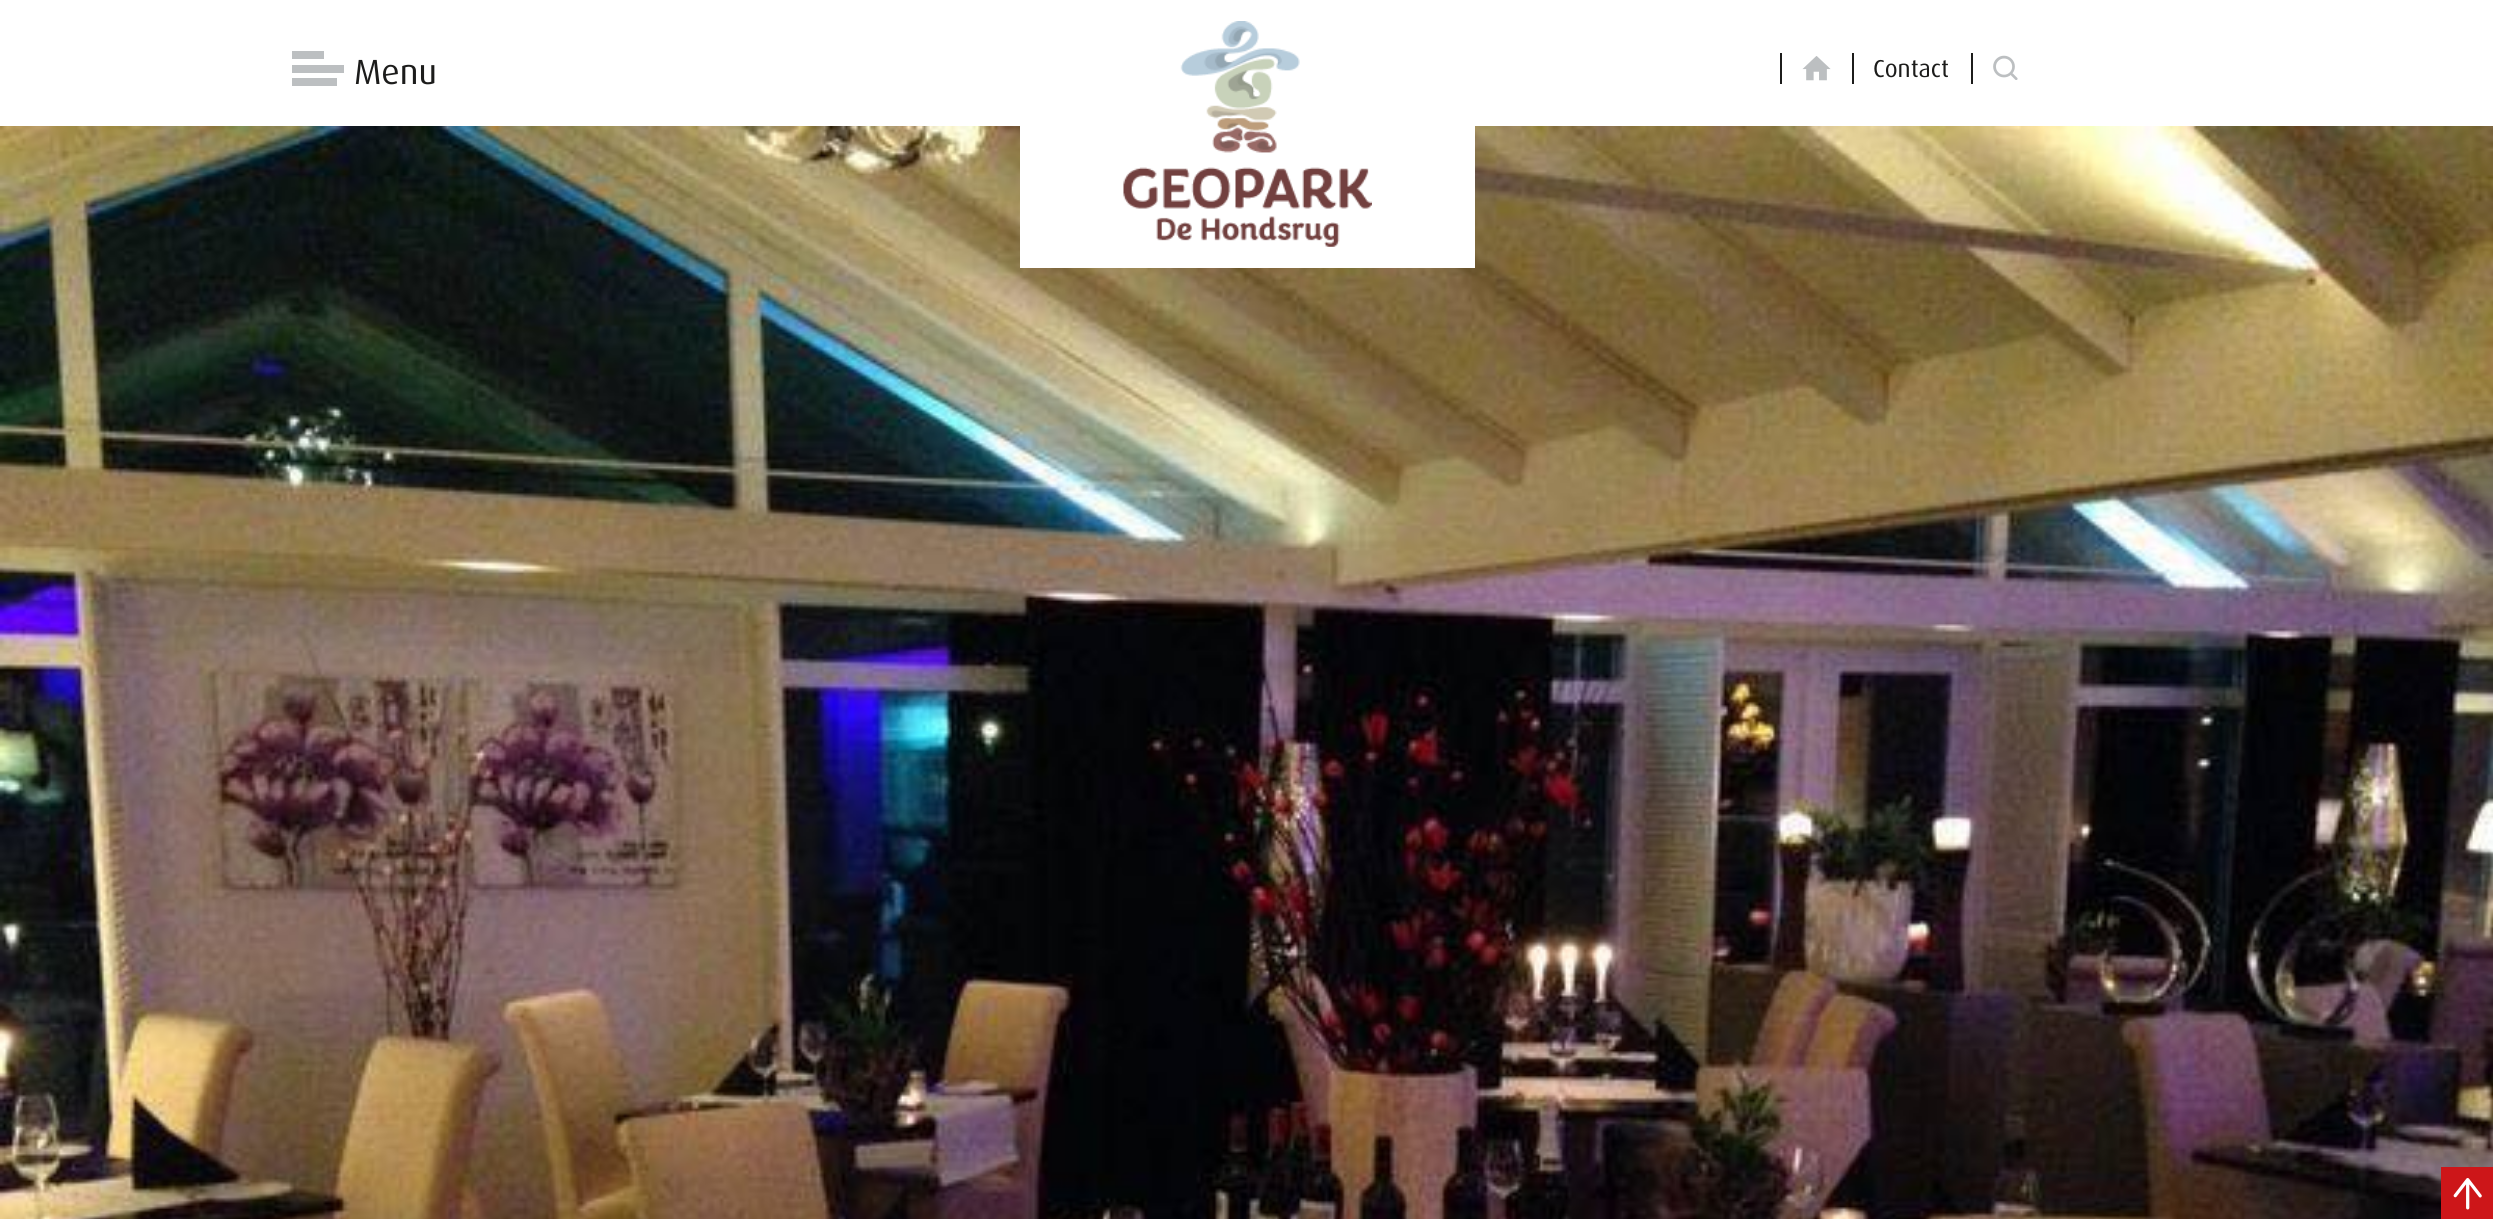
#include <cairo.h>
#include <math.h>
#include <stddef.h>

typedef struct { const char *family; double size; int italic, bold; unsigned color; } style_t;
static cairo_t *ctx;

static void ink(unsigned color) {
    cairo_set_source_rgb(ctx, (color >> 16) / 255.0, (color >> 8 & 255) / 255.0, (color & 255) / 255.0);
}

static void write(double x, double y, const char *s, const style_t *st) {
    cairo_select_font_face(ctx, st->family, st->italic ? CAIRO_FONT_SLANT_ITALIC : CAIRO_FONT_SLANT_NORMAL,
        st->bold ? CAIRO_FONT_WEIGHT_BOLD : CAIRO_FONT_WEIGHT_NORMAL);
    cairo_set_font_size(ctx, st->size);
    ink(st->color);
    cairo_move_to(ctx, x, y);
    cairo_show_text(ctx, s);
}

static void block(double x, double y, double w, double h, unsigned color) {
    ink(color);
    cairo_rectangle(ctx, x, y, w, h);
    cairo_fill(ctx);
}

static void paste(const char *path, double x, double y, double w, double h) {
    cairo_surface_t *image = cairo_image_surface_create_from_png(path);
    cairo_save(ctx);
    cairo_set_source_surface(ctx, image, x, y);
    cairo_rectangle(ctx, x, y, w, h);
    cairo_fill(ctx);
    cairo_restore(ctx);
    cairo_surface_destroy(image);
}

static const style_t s1 = {"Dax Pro", 35, 0, 0, 0x1c1c1b};
static const style_t s2 = {"Dax Pro", 24.5, 0, 0, 0x1c1c1b};

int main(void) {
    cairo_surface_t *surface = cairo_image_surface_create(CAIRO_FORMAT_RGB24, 2493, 1219);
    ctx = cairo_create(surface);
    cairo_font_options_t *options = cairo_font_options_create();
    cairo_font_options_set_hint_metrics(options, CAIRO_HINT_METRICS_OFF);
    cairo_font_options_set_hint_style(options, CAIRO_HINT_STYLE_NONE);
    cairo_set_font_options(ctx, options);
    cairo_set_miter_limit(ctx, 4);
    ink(0xffffff);
    cairo_paint(ctx);
    ink(0xbcbfc1);
    cairo_new_path(ctx);
    cairo_move_to(ctx, 292, 51);
    cairo_line_to(ctx, 324, 51);
    cairo_line_to(ctx, 324, 59);
    cairo_line_to(ctx, 292, 59);
    cairo_close_path(ctx);
    cairo_move_to(ctx, 292, 65);
    cairo_line_to(ctx, 344, 65);
    cairo_line_to(ctx, 344, 73);
    cairo_line_to(ctx, 292, 73);
    cairo_close_path(ctx);
    cairo_move_to(ctx, 292, 78);
    cairo_line_to(ctx, 337, 78);
    cairo_line_to(ctx, 337, 86);
    cairo_line_to(ctx, 292, 86);
    cairo_close_path(ctx);
    cairo_fill(ctx);
    write(354, 84, "Menu", &s1);
    paste("pic4.png", 0, 126, 2493, 1093);
    block(1020, 126, 455, 142, 0xffffff);
    paste("pic1.png", 1123, 21, 249, 226);
    block(1780, 53, 2, 31, 0x1c1c1b);
    paste("pic2.png", 1802, 56, 29, 25);
    block(1852, 53, 2, 31, 0x1c1c1b);
    write(1873, 77, "Contact", &s2);
    block(1971, 53, 2, 31, 0x1c1c1b);
    paste("pic3.png", 1993, 55, 25, 25);
    block(2441, 1167, 52, 52, 0xcd1619);
    paste("pic5.png", 2453, 1178, 29, 32);
    cairo_surface_write_to_png(surface, "screenshot.png");
    cairo_font_options_destroy(options);
    cairo_destroy(ctx);
    cairo_surface_destroy(surface);
    return 0;
}
